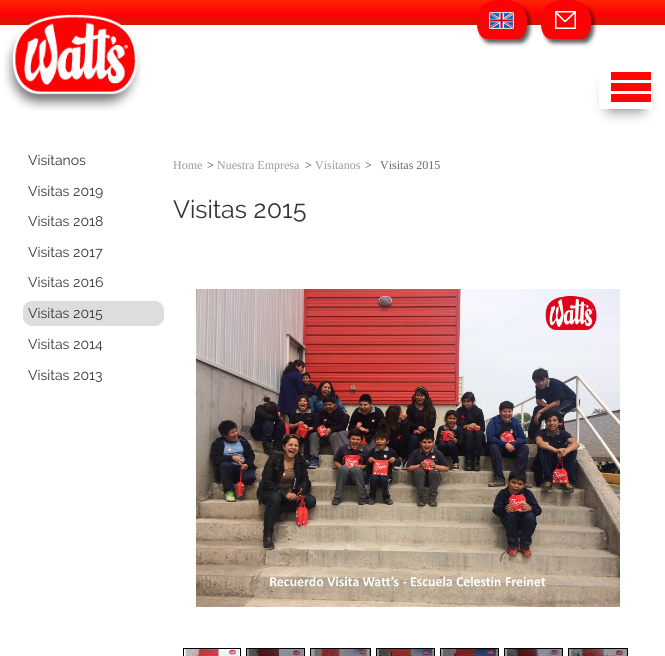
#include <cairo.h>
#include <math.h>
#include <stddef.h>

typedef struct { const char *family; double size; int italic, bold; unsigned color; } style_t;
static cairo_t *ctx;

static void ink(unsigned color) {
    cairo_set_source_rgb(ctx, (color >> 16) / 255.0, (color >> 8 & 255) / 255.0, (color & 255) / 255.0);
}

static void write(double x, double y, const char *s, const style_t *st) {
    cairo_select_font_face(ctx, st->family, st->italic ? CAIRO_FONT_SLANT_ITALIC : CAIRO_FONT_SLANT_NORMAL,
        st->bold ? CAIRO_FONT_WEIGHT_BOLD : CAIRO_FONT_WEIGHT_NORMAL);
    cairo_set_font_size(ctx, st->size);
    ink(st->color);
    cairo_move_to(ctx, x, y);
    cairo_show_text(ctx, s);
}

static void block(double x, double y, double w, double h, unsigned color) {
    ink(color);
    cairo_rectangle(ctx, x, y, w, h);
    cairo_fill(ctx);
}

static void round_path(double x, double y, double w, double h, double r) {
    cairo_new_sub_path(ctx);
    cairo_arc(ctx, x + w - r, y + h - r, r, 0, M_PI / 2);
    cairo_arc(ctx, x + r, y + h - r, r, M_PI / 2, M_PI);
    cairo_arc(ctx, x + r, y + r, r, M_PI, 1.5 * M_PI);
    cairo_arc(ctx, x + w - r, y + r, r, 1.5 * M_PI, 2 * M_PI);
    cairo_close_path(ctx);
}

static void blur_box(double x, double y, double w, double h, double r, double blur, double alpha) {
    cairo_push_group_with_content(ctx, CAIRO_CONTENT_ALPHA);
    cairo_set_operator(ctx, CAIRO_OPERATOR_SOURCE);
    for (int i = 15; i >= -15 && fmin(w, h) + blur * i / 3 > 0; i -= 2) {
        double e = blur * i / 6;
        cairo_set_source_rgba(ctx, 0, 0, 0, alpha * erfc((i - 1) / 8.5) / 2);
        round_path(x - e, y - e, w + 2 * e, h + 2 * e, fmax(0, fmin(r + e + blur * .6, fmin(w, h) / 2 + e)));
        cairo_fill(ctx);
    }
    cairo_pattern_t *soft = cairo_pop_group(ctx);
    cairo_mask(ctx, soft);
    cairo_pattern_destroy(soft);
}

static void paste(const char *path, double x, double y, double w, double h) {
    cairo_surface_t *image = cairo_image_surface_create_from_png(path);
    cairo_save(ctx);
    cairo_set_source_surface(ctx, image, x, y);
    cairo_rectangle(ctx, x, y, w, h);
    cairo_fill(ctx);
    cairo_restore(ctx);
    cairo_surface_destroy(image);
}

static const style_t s1 = {"Raleway", 14, 0, 0, 0x333333};
static const style_t s2 = {"Liberation Serif", 12, 0, 0, 0x999999};
static const style_t s3 = {"Liberation Serif", 12, 0, 0, 0x333333};
static const style_t s4 = {"Liberation Serif", 12, 0, 0, 0x666666};
static const style_t s5 = {"Raleway", 25, 0, 0, 0x333333};

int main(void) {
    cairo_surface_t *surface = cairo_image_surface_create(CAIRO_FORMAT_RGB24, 665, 656);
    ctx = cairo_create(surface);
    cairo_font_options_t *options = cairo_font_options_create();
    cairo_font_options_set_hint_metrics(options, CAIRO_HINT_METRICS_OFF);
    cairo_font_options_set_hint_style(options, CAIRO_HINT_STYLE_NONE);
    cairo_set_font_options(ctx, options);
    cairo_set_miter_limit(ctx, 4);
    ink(0xffffff);
    cairo_paint(ctx);
    paste("pic1.png", 0, 0, 665, 25);
    paste("pic2.png", 3, 14, 138, 97);
    paste("pic3.png", 476, 0, 57, 47);
    paste("pic4.png", 540, 0, 57, 47);
    ink(0x000000);
    blur_box(609, 87, 33, 22, 2, 7.5, 0.6);
    block(599, 71, 53, 38, 0xffffff);
    block(611, 72, 40, 8, 0xfc0804);
    block(611, 83, 40, 8, 0xfc0804);
    block(611, 94, 40, 8, 0xfc0804);
    write(28, 165, "Visítanos", &s1);
    write(28, 196, "Visitas 2019", &s1);
    write(28, 226, "Visitas 2018", &s1);
    write(28, 257, "Visitas 2017", &s1);
    write(28, 287, "Visitas 2016", &s1);
    ink(0xdddddd);
    round_path(23, 301, 141, 25, 9);
    cairo_fill(ctx);
    write(28, 318, "Visitas 2015", &s1);
    write(28, 349, "Visitas 2014", &s1);
    write(28, 380, "Visitas 2013", &s1);
    write(173, 169, "Home", &s2);
    write(207, 169, ">", &s3);
    write(217, 169, "Nuestra Empresa", &s2);
    write(305, 169, ">", &s3);
    write(315, 169, "Visítanos", &s2);
    write(365, 169, ">", &s3);
    write(380, 169, "Visitas 2015", &s4);
    write(173, 218, "Visitas 2015", &s5);
    paste("pic5.png", 193, 289, 430, 318);
    block(183, 648, 58, 8, 0x000000);
    paste("pic6.png", 184, 649, 56, 7);
    block(246, 648, 59, 8, 0x000000);
    paste("pic7.png", 247, 649, 57, 7);
    block(310, 648, 61, 8, 0x000000);
    paste("pic8.png", 311, 649, 59, 7);
    block(376, 648, 59, 8, 0x000000);
    paste("pic9.png", 377, 649, 57, 7);
    block(440, 648, 59, 8, 0x000000);
    paste("pic10.png", 441, 649, 57, 7);
    block(504, 648, 59, 8, 0x000000);
    paste("pic11.png", 505, 649, 57, 7);
    block(568, 648, 60, 8, 0x000000);
    paste("pic12.png", 569, 649, 58, 7);
    cairo_surface_write_to_png(surface, "screenshot.png");
    cairo_font_options_destroy(options);
    cairo_destroy(ctx);
    cairo_surface_destroy(surface);
    return 0;
}
